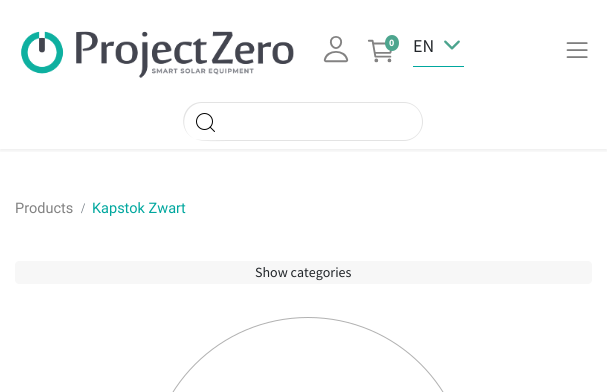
#include <cairo.h>
#include <math.h>
#include <stddef.h>

typedef struct { const char *family; double size; int italic, bold; unsigned color; } style_t;
static cairo_t *ctx;

static void ink(unsigned color) {
    cairo_set_source_rgb(ctx, (color >> 16) / 255.0, (color >> 8 & 255) / 255.0, (color & 255) / 255.0);
}

static void write(double x, double y, const char *s, const style_t *st) {
    cairo_select_font_face(ctx, st->family, st->italic ? CAIRO_FONT_SLANT_ITALIC : CAIRO_FONT_SLANT_NORMAL,
        st->bold ? CAIRO_FONT_WEIGHT_BOLD : CAIRO_FONT_WEIGHT_NORMAL);
    cairo_set_font_size(ctx, st->size);
    ink(st->color);
    cairo_move_to(ctx, x, y);
    cairo_show_text(ctx, s);
}

static void block(double x, double y, double w, double h, unsigned color) {
    ink(color);
    cairo_rectangle(ctx, x, y, w, h);
    cairo_fill(ctx);
}

static void round_path(double x, double y, double w, double h, double r) {
    cairo_new_sub_path(ctx);
    cairo_arc(ctx, x + w - r, y + h - r, r, 0, M_PI / 2);
    cairo_arc(ctx, x + r, y + h - r, r, M_PI / 2, M_PI);
    cairo_arc(ctx, x + r, y + r, r, M_PI, 1.5 * M_PI);
    cairo_arc(ctx, x + w - r, y + r, r, 1.5 * M_PI, 2 * M_PI);
    cairo_close_path(ctx);
}

static void blur_box(double x, double y, double w, double h, double r, double blur, double alpha) {
    cairo_push_group_with_content(ctx, CAIRO_CONTENT_ALPHA);
    cairo_set_operator(ctx, CAIRO_OPERATOR_SOURCE);
    for (int i = 15; i >= -15 && fmin(w, h) + blur * i / 3 > 0; i -= 2) {
        double e = blur * i / 6;
        cairo_set_source_rgba(ctx, 0, 0, 0, alpha * erfc((i - 1) / 8.5) / 2);
        round_path(x - e, y - e, w + 2 * e, h + 2 * e, fmax(0, fmin(r + e + blur * .6, fmin(w, h) / 2 + e)));
        cairo_fill(ctx);
    }
    cairo_pattern_t *soft = cairo_pop_group(ctx);
    cairo_mask(ctx, soft);
    cairo_pattern_destroy(soft);
}

static void paste(const char *path, double x, double y, double w, double h) {
    cairo_surface_t *image = cairo_image_surface_create_from_png(path);
    cairo_save(ctx);
    cairo_set_source_surface(ctx, image, x, y);
    cairo_rectangle(ctx, x, y, w, h);
    cairo_fill(ctx);
    cairo_restore(ctx);
    cairo_surface_destroy(image);
}

static const style_t s1 = {"Source Sans Pro", 10, 0, 1, 0xffffff};
static const style_t s2 = {"Source Sans Pro", 18, 0, 0, 0x212529};
static const style_t s3 = {"Roboto", 14.5, 0, 0, 0x828282};
static const style_t s4 = {"Liberation Serif", 14.5, 0, 0, 0x6c757d};
static const style_t s5 = {"Roboto", 14.5, 0, 0, 0x00a79e};
static const style_t s6 = {"Source Sans Pro", 14, 0, 0, 0x212529};

int main(void) {
    cairo_surface_t *surface = cairo_image_surface_create(CAIRO_FORMAT_RGB24, 607, 392);
    ctx = cairo_create(surface);
    cairo_font_options_t *options = cairo_font_options_create();
    cairo_font_options_set_hint_metrics(options, CAIRO_HINT_METRICS_OFF);
    cairo_font_options_set_hint_style(options, CAIRO_HINT_STYLE_NONE);
    cairo_set_font_options(ctx, options);
    cairo_set_miter_limit(ctx, 4);
    ink(0xffffff);
    cairo_paint(ctx);
    cairo_save(ctx);
    cairo_rectangle(ctx, 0, 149, 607, 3);
    cairo_clip(ctx);
    ink(0x000000);
    blur_box(0, 2, 607, 149, 0, 2, 0.07);
    cairo_restore(ctx);
    paste("pic1.png", 21, 31, 273, 47);
    paste("pic2.png", 323, 36, 26, 27);
    paste("pic3.png", 367, 39, 25, 24);
    ink(0x4da58e);
    cairo_new_path(ctx);
    cairo_move_to(ctx, 392, 35);
    cairo_curve_to(ctx, 396, 35, 399, 38.5, 399, 43);
    cairo_curve_to(ctx, 399, 47.5, 396, 51, 392, 51);
    cairo_curve_to(ctx, 388, 51, 385, 47.5, 385, 43);
    cairo_curve_to(ctx, 385, 38.5, 388, 35, 392, 35);
    cairo_close_path(ctx);
    cairo_fill(ctx);
    write(389, 46, "0", &s1);
    block(413, 66, 51, 1, 0x00a79e);
    write(413, 52, "EN", &s2);
    paste("pic4.png", 444, 40, 16, 10);
    paste("pic5.png", 566, 42, 22, 16);
    ink(0xe3e3e3);
    cairo_set_fill_rule(ctx, CAIRO_FILL_RULE_EVEN_ODD);
    cairo_new_path(ctx);
    cairo_move_to(ctx, 202, 102);
    cairo_line_to(ctx, 227, 102);
    cairo_line_to(ctx, 227, 141);
    cairo_curve_to(ctx, 219, 141, 202, 142, 195, 139);
    cairo_curve_to(ctx, 176, 131, 181, 102, 202, 102);
    cairo_close_path(ctx);
    cairo_move_to(ctx, 202, 103);
    cairo_line_to(ctx, 227, 103);
    cairo_line_to(ctx, 227, 140);
    cairo_curve_to(ctx, 219, 140, 202, 141, 195, 139);
    cairo_curve_to(ctx, 177, 131, 183, 103, 202, 103);
    cairo_close_path(ctx);
    cairo_fill(ctx);
    paste("pic6.png", 196, 113, 19, 19);
    cairo_new_path(ctx);
    cairo_move_to(ctx, 227, 102);
    cairo_line_to(ctx, 404, 102);
    cairo_curve_to(ctx, 414, 102, 423, 111, 423, 122);
    cairo_curve_to(ctx, 423, 132, 414, 141, 404, 141);
    cairo_line_to(ctx, 227, 141);
    cairo_close_path(ctx);
    cairo_move_to(ctx, 227, 103);
    cairo_line_to(ctx, 404, 103);
    cairo_curve_to(ctx, 414, 103, 422, 111, 422, 122);
    cairo_curve_to(ctx, 422, 132, 414, 140, 404, 140);
    cairo_line_to(ctx, 227, 140);
    cairo_close_path(ctx);
    cairo_fill(ctx);
    write(15, 213, "Products", &s3);
    write(81, 213, "/", &s4);
    write(92, 213, "Kapstok Zwart", &s5);
    ink(0xf7f7f7);
    round_path(15, 261, 577, 23, 4);
    cairo_fill(ctx);
    write(255, 277, "Show categories", &s6);
    round_path(148.5, 317.5, 319, 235, 159.5);
    ink(0xb1b1b1);
    cairo_set_line_width(ctx, 1);
    cairo_stroke(ctx);
    cairo_surface_write_to_png(surface, "screenshot.png");
    cairo_font_options_destroy(options);
    cairo_destroy(ctx);
    cairo_surface_destroy(surface);
    return 0;
}
